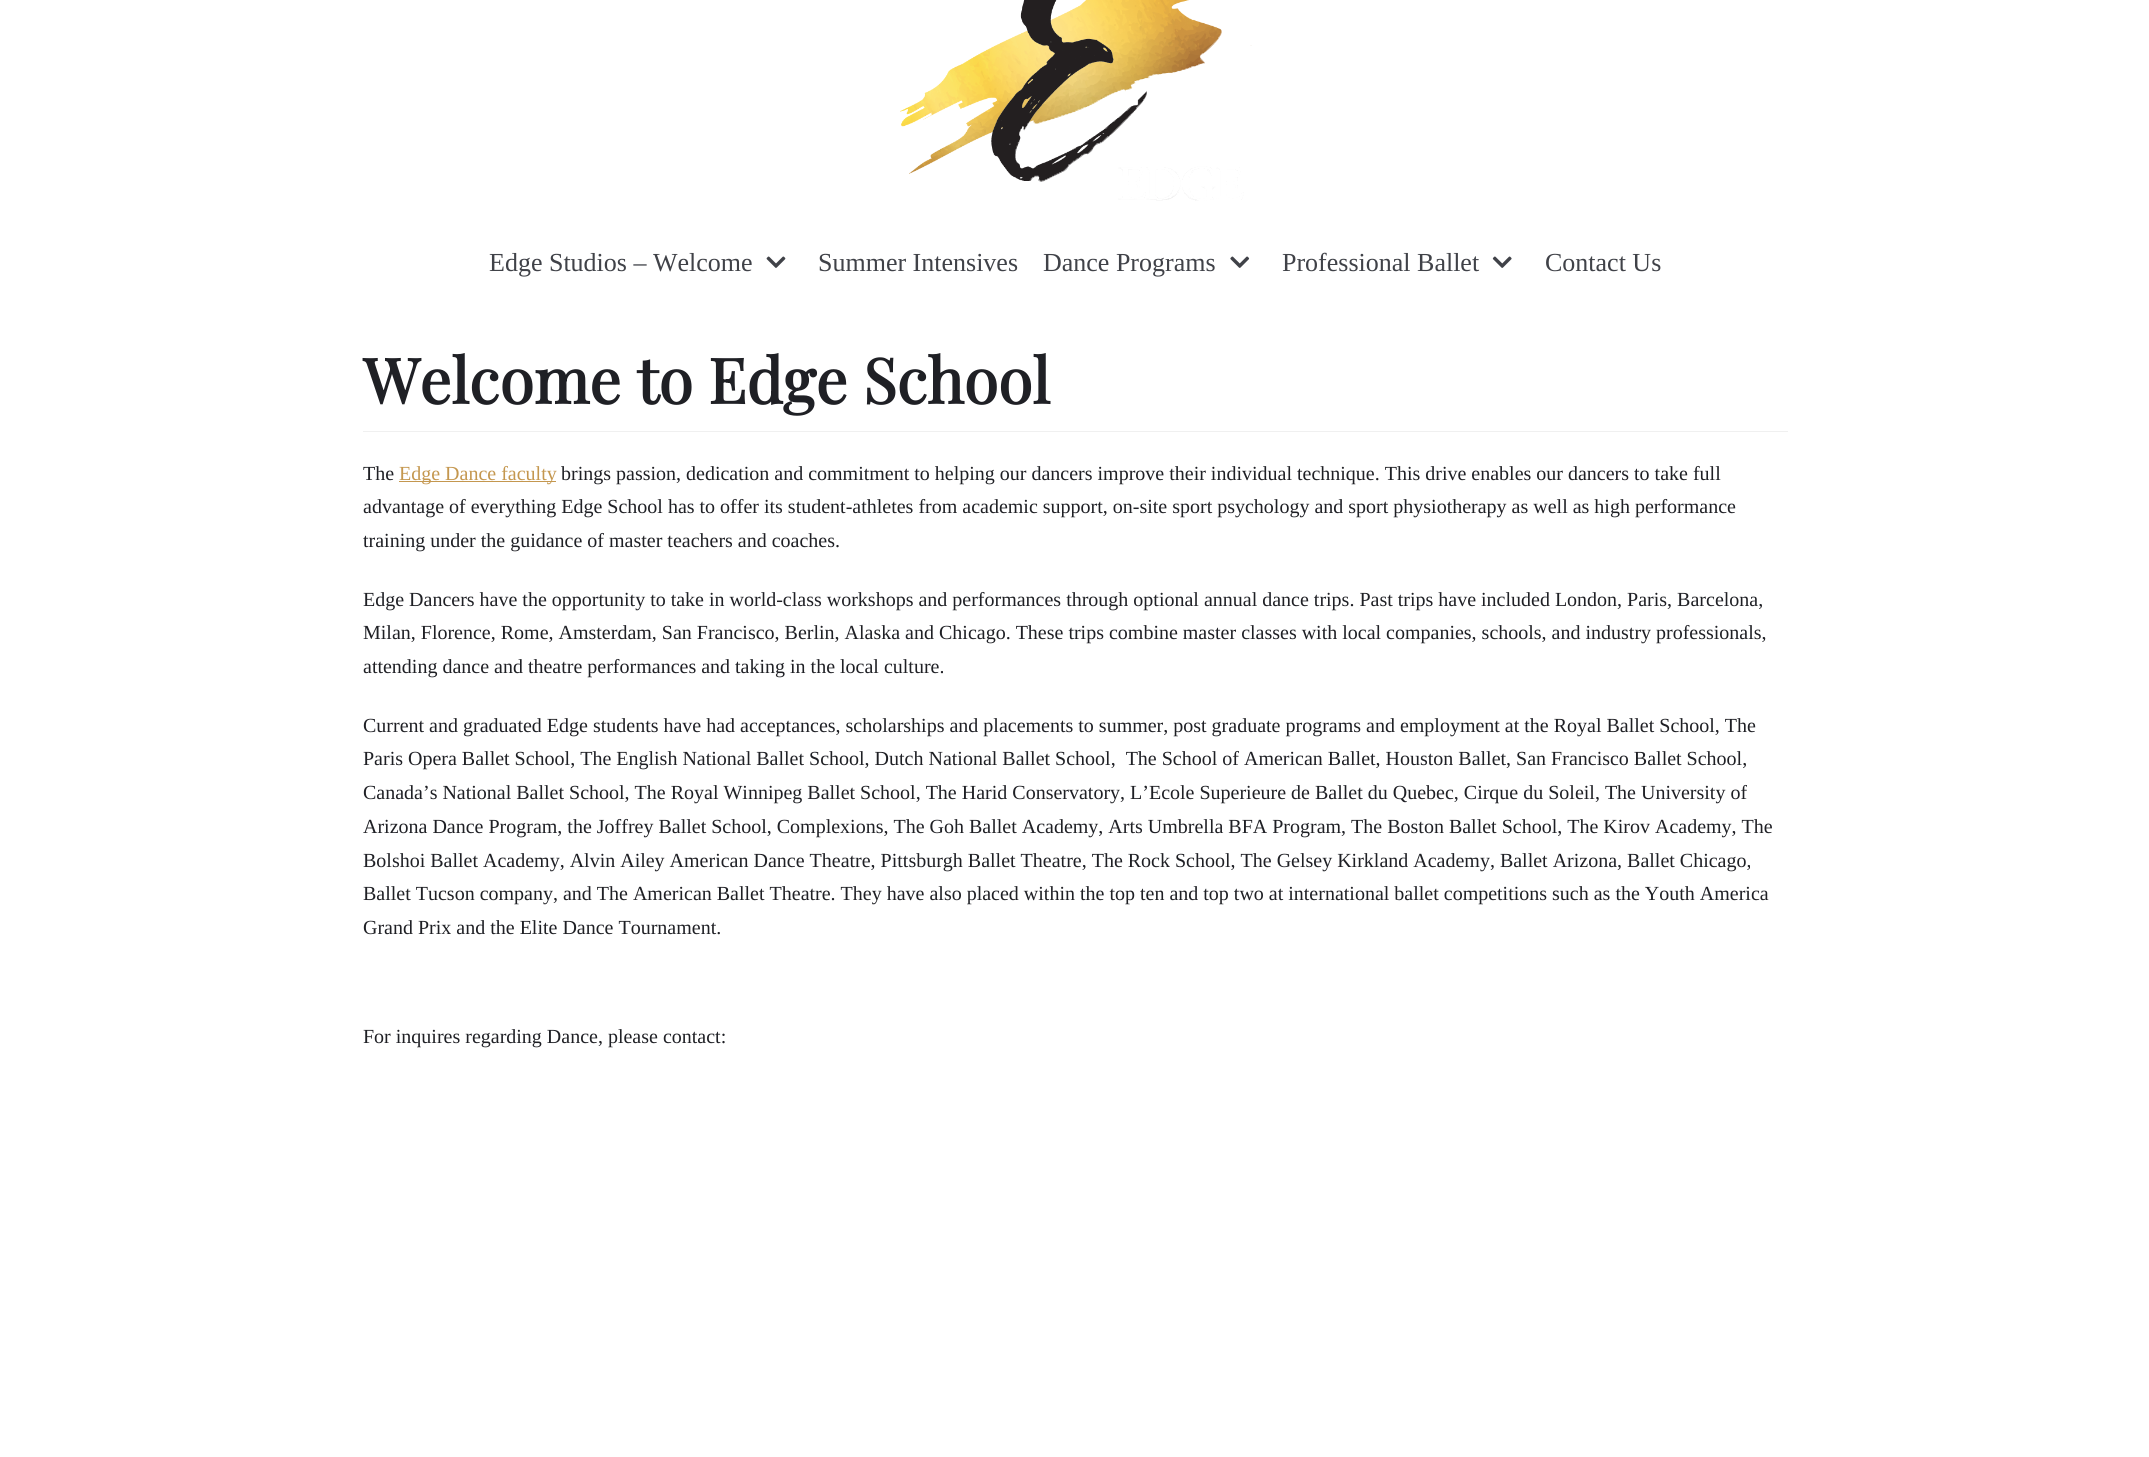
#include <cairo.h>
#include <math.h>
#include <stddef.h>

typedef struct { const char *family; double size; int italic, bold; unsigned color; } style_t;
static cairo_t *ctx;

static void ink(unsigned color) {
    cairo_set_source_rgb(ctx, (color >> 16) / 255.0, (color >> 8 & 255) / 255.0, (color & 255) / 255.0);
}

static void write(double x, double y, const char *s, const style_t *st) {
    cairo_select_font_face(ctx, st->family, st->italic ? CAIRO_FONT_SLANT_ITALIC : CAIRO_FONT_SLANT_NORMAL,
        st->bold ? CAIRO_FONT_WEIGHT_BOLD : CAIRO_FONT_WEIGHT_NORMAL);
    cairo_set_font_size(ctx, st->size);
    ink(st->color);
    cairo_move_to(ctx, x, y);
    cairo_show_text(ctx, s);
}

static void block(double x, double y, double w, double h, unsigned color) {
    ink(color);
    cairo_rectangle(ctx, x, y, w, h);
    cairo_fill(ctx);
}

static void paste(const char *path, double x, double y, double w, double h) {
    cairo_surface_t *image = cairo_image_surface_create_from_png(path);
    cairo_save(ctx);
    cairo_set_source_surface(ctx, image, x, y);
    cairo_rectangle(ctx, x, y, w, h);
    cairo_fill(ctx);
    cairo_restore(ctx);
    cairo_surface_destroy(image);
}

static const style_t s1 = {"Liberation Serif", 26, 0, 0, 0x404248};
static const style_t s2 = {"Playfair Display", 62.5, 0, 1, 0x1f2025};
static const style_t s3 = {"Liberation Serif", 20, 0, 0, 0x1f2025};
static const style_t s4 = {"Liberation Serif", 20, 0, 0, 0xc4974f};

int main(void) {
    cairo_surface_t *surface = cairo_image_surface_create(CAIRO_FORMAT_RGB24, 2149, 1457);
    ctx = cairo_create(surface);
    cairo_font_options_t *options = cairo_font_options_create();
    cairo_font_options_set_hint_metrics(options, CAIRO_HINT_METRICS_OFF);
    cairo_font_options_set_hint_style(options, CAIRO_HINT_STYLE_NONE);
    cairo_set_font_options(ctx, options);
    cairo_set_miter_limit(ctx, 4);
    ink(0xffffff);
    cairo_paint(ctx);
    paste("pic1.png", 900, 0, 352, 201);
    write(489, 271, "Edge Studios – Welcome", &s1);
    paste("pic2.png", 766, 256, 20, 12);
    write(818, 271, "Summer Intensives", &s1);
    write(1043, 271, "Dance Programs", &s1);
    paste("pic3.png", 1230, 256, 20, 12);
    write(1282, 271, "Professional Ballet", &s1);
    paste("pic4.png", 1492, 256, 20, 12);
    write(1545, 271, "Contact Us", &s1);
    block(363, 431, 1425, 1, 0xf0f0f0);
    write(363, 404, "Welcome to Edge School", &s2);
    write(363, 480, "The", &s3);
    block(399, 481, 157, 1, 0xc4974f);
    write(399, 480, "Edge Dance faculty", &s4);
    write(561, 480, "brings passion, dedication and commitment to helping our dancers improve their individual technique. This drive enables our dancers to take full", &s3);
    write(363, 513, "advantage of everything Edge School has to offer its student-athletes from academic support, on-site sport psychology and sport physiotherapy as well as high performance", &s3);
    write(363, 547, "training under the guidance of master teachers and coaches.", &s3);
    write(363, 606, "Edge Dancers have the opportunity to take in world-class workshops and performances through optional annual dance trips. Past trips have included London, Paris, Barcelona,", &s3);
    write(363, 639, "Milan, Florence, Rome, Amsterdam, San Francisco, Berlin, Alaska and Chicago. These trips combine master classes with local companies, schools, and industry professionals,", &s3);
    write(363, 673, "attending dance and theatre performances and taking in the local culture.", &s3);
    write(363, 732, "Current and graduated Edge students have had acceptances, scholarships and placements to summer, post graduate programs and employment at the Royal Ballet School, The", &s3);
    write(363, 765, "Paris Opera Ballet School, The English National Ballet School, Dutch National Ballet School,  The School of American Ballet, Houston Ballet, San Francisco Ballet School,", &s3);
    write(363, 799, "Canada’s National Ballet School, The Royal Winnipeg Ballet School, The Harid Conservatory, L’Ecole Superieure de Ballet du Quebec, Cirque du Soleil, The University of", &s3);
    write(363, 833, "Arizona Dance Program, the Joffrey Ballet School, Complexions, The Goh Ballet Academy, Arts Umbrella BFA Program, The Boston Ballet School, The Kirov Academy, The", &s3);
    write(363, 867, "Bolshoi Ballet Academy, Alvin Ailey American Dance Theatre, Pittsburgh Ballet Theatre, The Rock School, The Gelsey Kirkland Academy, Ballet Arizona, Ballet Chicago,", &s3);
    write(363, 900, "Ballet Tucson company, and The American Ballet Theatre. They have also placed within the top ten and top two at international ballet competitions such as the Youth America", &s3);
    write(363, 934, "Grand Prix and the Elite Dance Tournament.", &s3);
    write(363, 1043, "For inquires regarding Dance, please contact:", &s3);
    cairo_surface_write_to_png(surface, "screenshot.png");
    cairo_font_options_destroy(options);
    cairo_destroy(ctx);
    cairo_surface_destroy(surface);
    return 0;
}
